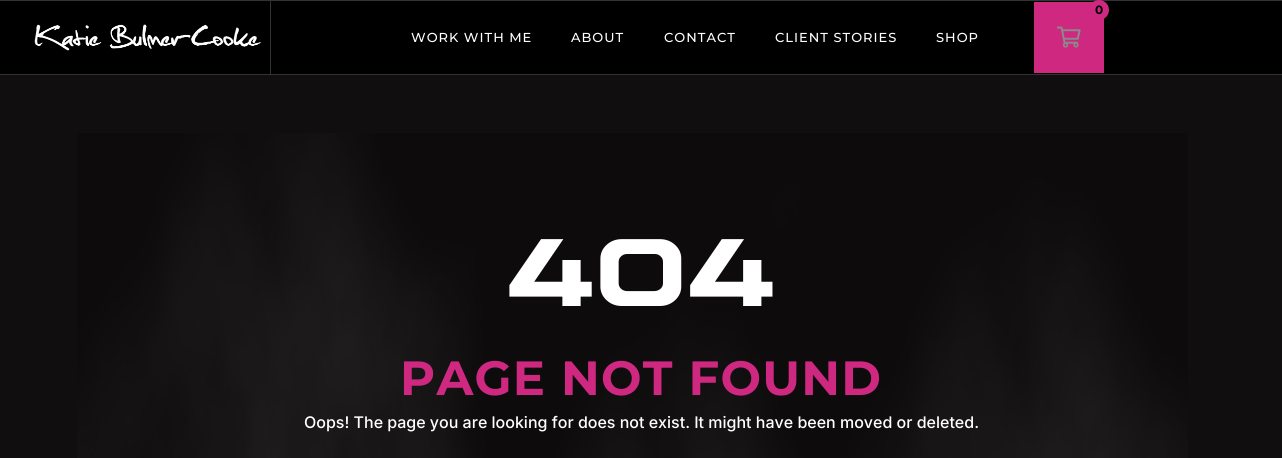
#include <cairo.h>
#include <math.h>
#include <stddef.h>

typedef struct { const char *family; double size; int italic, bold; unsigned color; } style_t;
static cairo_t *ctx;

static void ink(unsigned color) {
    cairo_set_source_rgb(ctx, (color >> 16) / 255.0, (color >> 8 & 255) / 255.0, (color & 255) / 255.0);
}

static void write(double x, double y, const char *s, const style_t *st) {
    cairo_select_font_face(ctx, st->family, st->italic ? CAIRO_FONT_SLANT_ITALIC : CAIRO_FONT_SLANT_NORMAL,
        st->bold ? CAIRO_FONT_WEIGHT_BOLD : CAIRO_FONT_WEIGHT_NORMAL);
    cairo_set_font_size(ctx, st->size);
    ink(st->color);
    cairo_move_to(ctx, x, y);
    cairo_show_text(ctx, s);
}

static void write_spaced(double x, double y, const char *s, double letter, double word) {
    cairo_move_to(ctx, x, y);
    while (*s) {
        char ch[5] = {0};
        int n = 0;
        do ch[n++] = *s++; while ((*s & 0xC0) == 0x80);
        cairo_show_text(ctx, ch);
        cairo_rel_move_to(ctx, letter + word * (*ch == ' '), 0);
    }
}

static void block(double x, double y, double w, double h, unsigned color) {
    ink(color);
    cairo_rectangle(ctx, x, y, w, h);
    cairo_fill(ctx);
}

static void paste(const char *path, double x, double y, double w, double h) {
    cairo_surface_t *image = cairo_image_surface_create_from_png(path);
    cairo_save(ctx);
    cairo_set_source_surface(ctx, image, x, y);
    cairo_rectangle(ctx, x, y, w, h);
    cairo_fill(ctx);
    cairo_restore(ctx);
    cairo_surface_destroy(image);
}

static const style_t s1 = {"Montserrat", 12, 0, 1, 0x000000};
static const style_t s2 = {"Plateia", 100, 0, 1, 0xffffff};
static const style_t s3 = {"Inter Medium", 16, 0, 0, 0xffffff};

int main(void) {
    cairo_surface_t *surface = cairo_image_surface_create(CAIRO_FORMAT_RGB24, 1282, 458);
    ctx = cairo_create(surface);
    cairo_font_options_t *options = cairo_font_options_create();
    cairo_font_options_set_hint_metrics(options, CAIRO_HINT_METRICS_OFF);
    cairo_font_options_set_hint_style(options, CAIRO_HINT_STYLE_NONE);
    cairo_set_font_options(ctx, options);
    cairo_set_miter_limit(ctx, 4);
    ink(0x110e10);
    cairo_paint(ctx);
    block(0, 1, 1282, 73, 0x000000);
    block(0, 0, 1282, 1, 0x333333);
    block(0, 74, 1282, 1, 0x333333);
    block(1034, 2, 70, 71, 0xce2880);
    cairo_arc(ctx, 1099, 10, 10, 0, 2 * M_PI);
    cairo_fill(ctx);
    write(1095, 14, "0", &s1);
    paste("pic1.png", 1057, 26, 24, 22);
    paste("pic2.png", 34, 24, 227, 27);
    block(270, 1, 1, 73, 0x333333);
    cairo_select_font_face(ctx, "Montserrat Medium", CAIRO_FONT_SLANT_NORMAL, CAIRO_FONT_WEIGHT_NORMAL);
    cairo_set_font_size(ctx, 13);
    ink(0xffffff);
    write_spaced(411, 42, "WORK WITH ME", 1, 0);
    write_spaced(571, 42, "ABOUT", 1, 0);
    write_spaced(664, 42, "CONTACT", 1, 0);
    write_spaced(775, 42, "CLIENT STORIES", 1, 0);
    write_spaced(936, 42, "SHOP", 1, 0);
    paste("pic3.png", 77, 133, 1111, 325);
    write(505, 306, "404", &s2);
    cairo_select_font_face(ctx, "Montserrat", CAIRO_FONT_SLANT_NORMAL, CAIRO_FONT_WEIGHT_BOLD);
    cairo_set_font_size(ctx, 48);
    ink(0xce2880);
    write_spaced(400, 395, "PAGE NOT FOUND", 1.25, 0);
    write(304, 428, "Oops! The page you are looking for does not exist. It might have been moved or deleted.", &s3);
    cairo_surface_write_to_png(surface, "screenshot.png");
    cairo_font_options_destroy(options);
    cairo_destroy(ctx);
    cairo_surface_destroy(surface);
    return 0;
}
